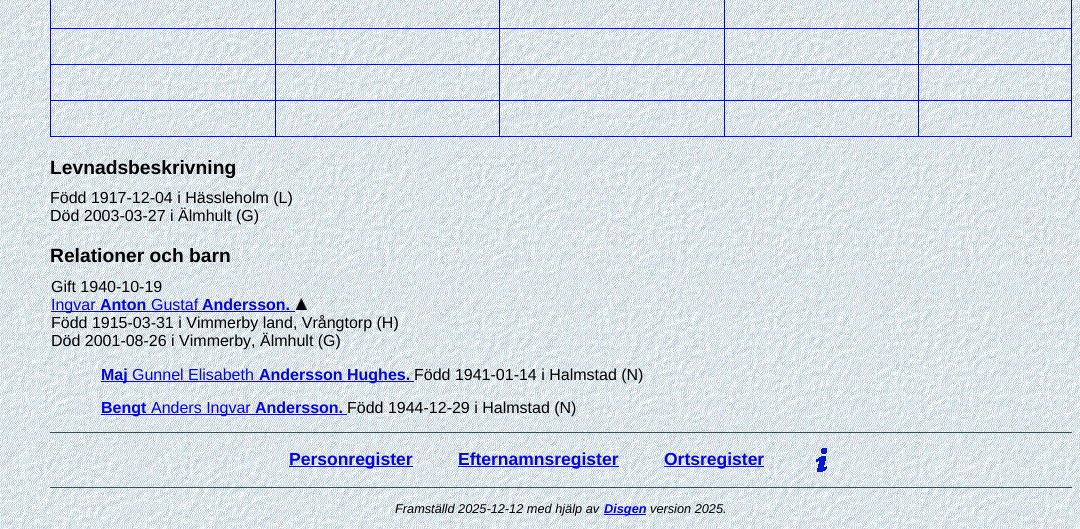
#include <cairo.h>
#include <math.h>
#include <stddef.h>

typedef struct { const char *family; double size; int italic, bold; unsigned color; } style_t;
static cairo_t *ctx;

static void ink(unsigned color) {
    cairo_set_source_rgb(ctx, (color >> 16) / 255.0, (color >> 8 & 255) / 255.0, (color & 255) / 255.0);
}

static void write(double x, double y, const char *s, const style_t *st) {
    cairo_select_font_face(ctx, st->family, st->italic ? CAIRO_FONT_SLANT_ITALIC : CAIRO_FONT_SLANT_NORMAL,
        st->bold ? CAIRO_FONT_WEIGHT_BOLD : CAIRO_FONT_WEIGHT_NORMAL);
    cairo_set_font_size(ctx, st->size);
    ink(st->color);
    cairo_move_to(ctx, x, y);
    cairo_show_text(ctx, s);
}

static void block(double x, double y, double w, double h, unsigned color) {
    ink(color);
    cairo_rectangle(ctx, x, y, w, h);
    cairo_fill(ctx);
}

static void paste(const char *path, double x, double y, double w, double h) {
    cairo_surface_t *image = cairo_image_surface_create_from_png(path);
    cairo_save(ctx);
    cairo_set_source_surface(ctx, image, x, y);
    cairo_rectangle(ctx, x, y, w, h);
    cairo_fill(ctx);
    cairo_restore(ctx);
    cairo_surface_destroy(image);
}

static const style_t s1 = {"Liberation Sans", 19.25, 0, 1, 0x000000};
static const style_t s2 = {"Liberation Sans", 16, 0, 0, 0x000000};
static const style_t s3 = {"Liberation Sans", 16, 0, 0, 0x0000ff};
static const style_t s4 = {"Liberation Sans", 16, 0, 1, 0x0000ff};
static const style_t s5 = {"Liberation Sans", 17.5, 0, 1, 0x0000ff};
static const style_t s6 = {"Liberation Sans", 12.75, 1, 0, 0x000000};
static const style_t s7 = {"Liberation Sans", 12.75, 1, 1, 0x0000ff};

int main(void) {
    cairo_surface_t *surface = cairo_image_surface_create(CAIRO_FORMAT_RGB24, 1080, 529);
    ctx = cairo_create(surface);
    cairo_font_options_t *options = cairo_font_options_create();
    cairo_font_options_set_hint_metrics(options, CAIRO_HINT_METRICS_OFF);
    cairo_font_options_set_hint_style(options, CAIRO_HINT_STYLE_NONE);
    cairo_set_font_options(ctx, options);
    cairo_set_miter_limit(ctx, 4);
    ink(0xffffff);
    cairo_paint(ctx);
    paste("pic1.png", 0, 0, 1080, 529);
    block(1071, 0, 1, 137, 0x0000ff);
    block(50, 136, 1022, 1, 0x0000ff);
    block(50, 0, 1, 137, 0x0000ff);
    block(50, 100, 1022, 1, 0x0000ff);
    block(50, 64, 1022, 1, 0x0000ff);
    block(50, 28, 1022, 1, 0x0000ff);
    block(918, 0, 1, 137, 0x0000ff);
    block(724, 0, 1, 137, 0x0000ff);
    block(275, 0, 1, 137, 0x0000ff);
    block(499, 0, 1, 137, 0x0000ff);
    write(50, 174, "Levnadsbeskrivning", &s1);
    write(50, 203, "Född 1917-12-04 i Hässleholm (L)", &s2);
    write(50, 221, "Död 2003-03-27 i Älmhult (G)", &s2);
    write(50, 262, "Relationer och barn", &s1);
    write(51, 292, "Gift 1940-10-19", &s2);
    block(51, 311, 44, 1, 0x0000ff);
    write(51, 310, "Ingvar", &s3);
    block(95, 311, 200, 1, 0x0000ff);
    write(100, 310, "Anton", &s4);
    write(151, 310, "Gustaf", &s3);
    write(202, 310, "Andersson.", &s4);
    paste("pic2.png", 295, 298, 12, 12);
    write(51, 328, "Född 1915-03-31 i Vimmerby land, Vrångtorp (H)", &s2);
    write(51, 346, "Död 2001-08-26 i Vimmerby, Älmhult (G)", &s2);
    block(101, 381, 313, 1, 0x0000ff);
    write(101, 380, "Maj", &s4);
    write(132, 380, "Gunnel Elisabeth", &s3);
    write(259, 380, "Andersson Hughes.", &s4);
    write(414, 380, "Född 1941-01-14 i Halmstad (N)", &s2);
    block(101, 414, 45, 1, 0x0000ff);
    write(101, 413, "Bengt", &s4);
    block(146, 414, 104, 1, 0x0000ff);
    write(151, 413, "Anders Ingvar", &s3);
    block(250, 414, 97, 1, 0x0000ff);
    write(255, 413, "Andersson.", &s4);
    write(347, 413, "Född 1944-12-29 i Halmstad (N)", &s2);
    block(50, 432, 1022, 1, 0x305059);
    block(50, 487, 1022, 1, 0x305059);
    block(289, 466, 124, 1, 0x0000ff);
    write(289, 465, "Personregister", &s5);
    block(458, 466, 161, 1, 0x0000ff);
    write(458, 465, "Efternamnsregister", &s5);
    block(664, 466, 100, 1, 0x0000ff);
    write(664, 465, "Ortsregister", &s5);
    paste("pic3.png", 816, 448, 11, 24);
    write(395, 513, "Framställd 2025-12-12 med hjälp av", &s6);
    block(604, 514, 42, 1, 0x0000ff);
    write(604, 513, "Disgen", &s7);
    write(650, 513, "version 2025.", &s6);
    cairo_surface_write_to_png(surface, "screenshot.png");
    cairo_font_options_destroy(options);
    cairo_destroy(ctx);
    cairo_surface_destroy(surface);
    return 0;
}
